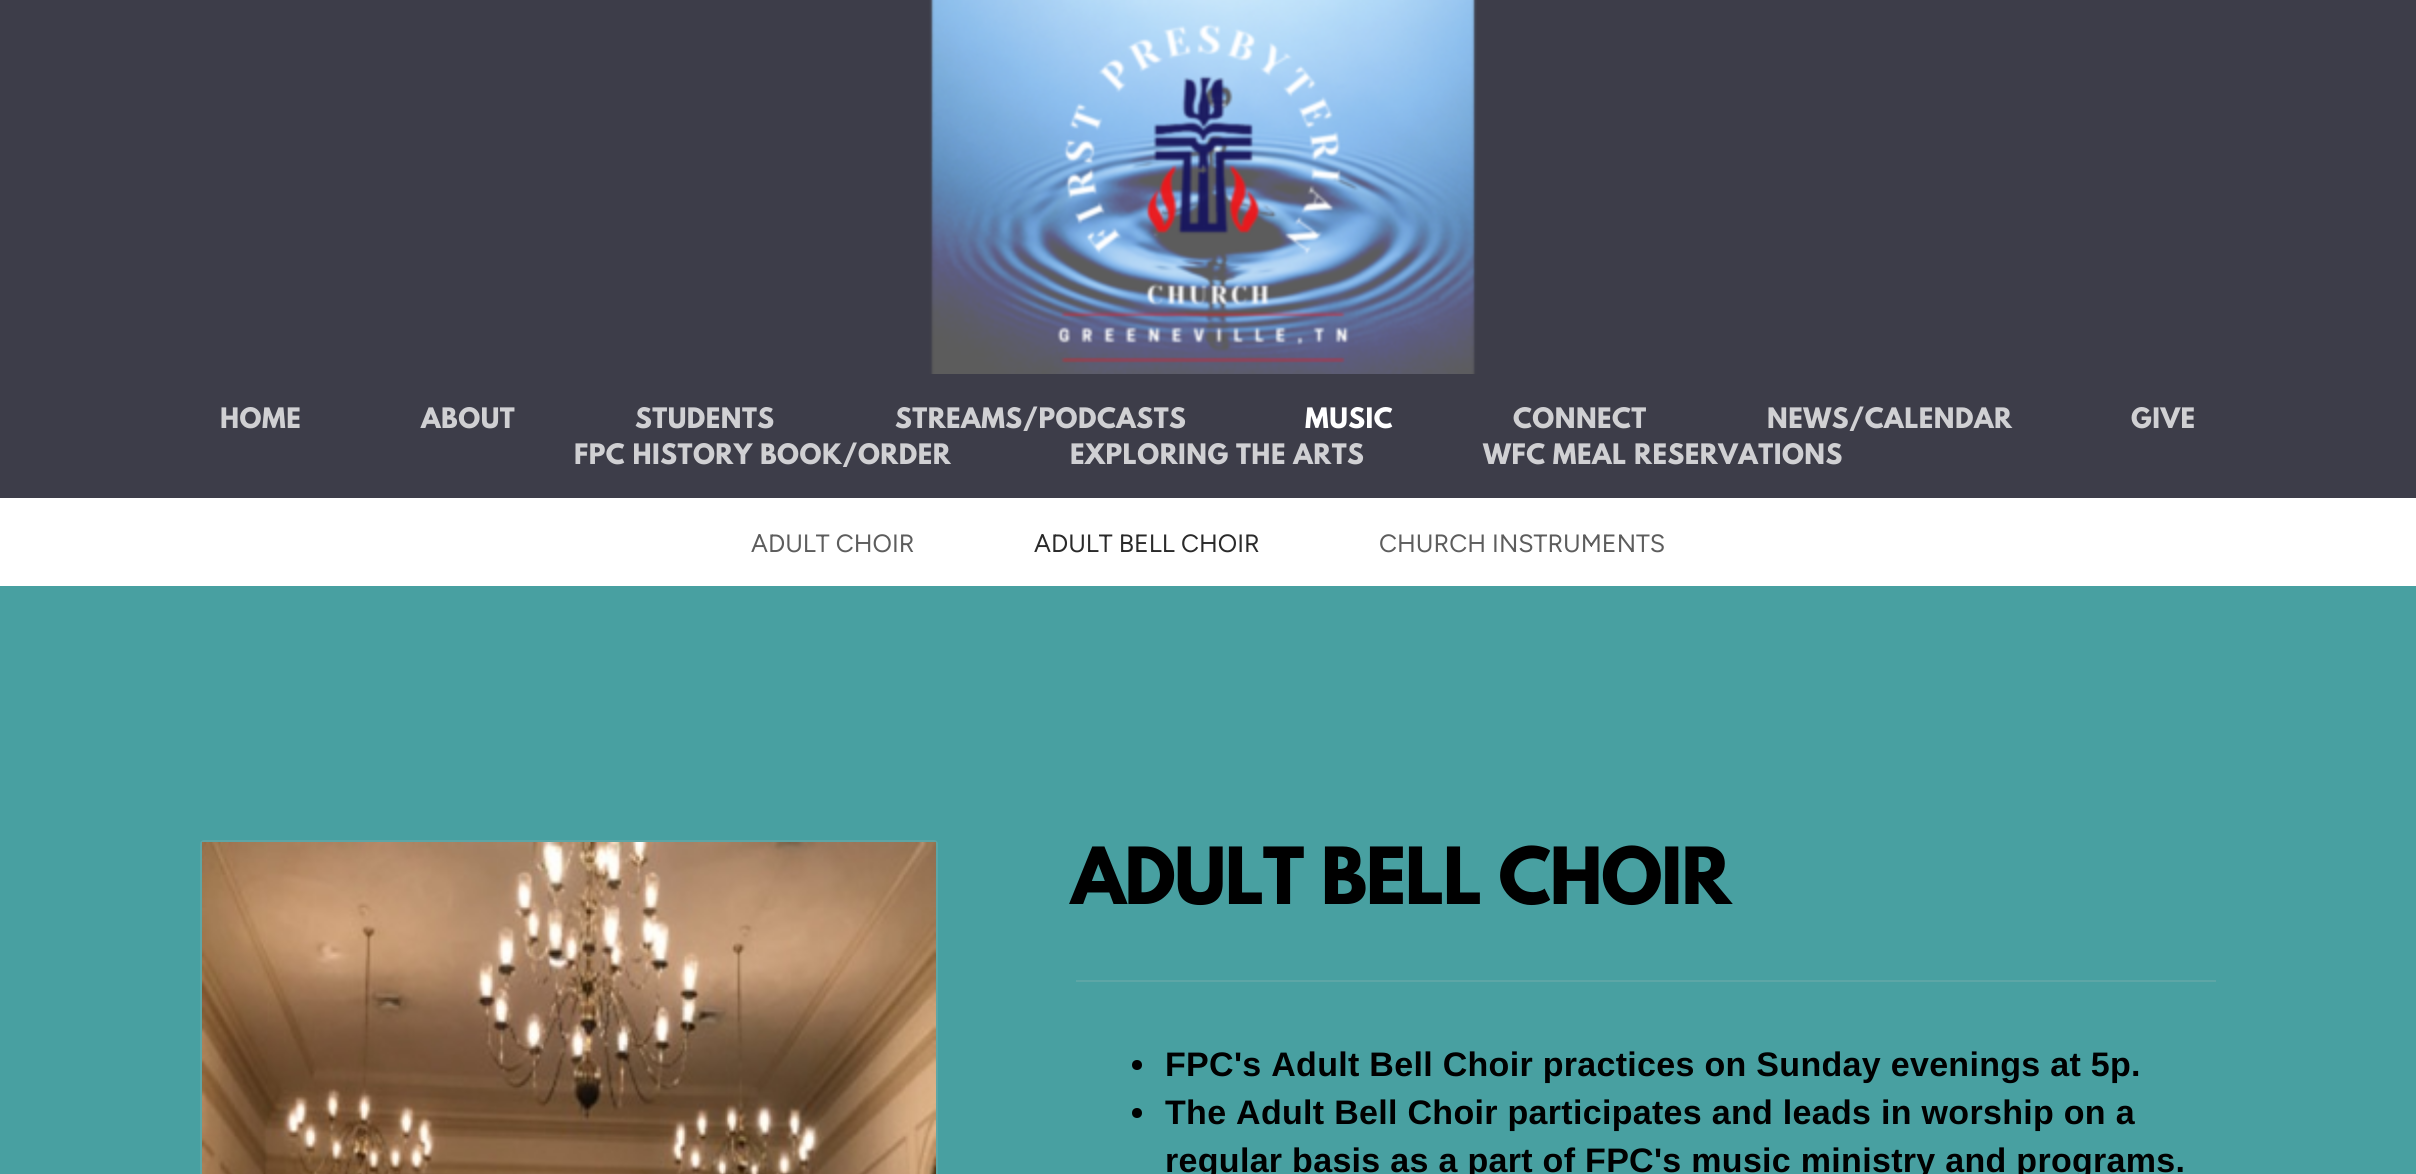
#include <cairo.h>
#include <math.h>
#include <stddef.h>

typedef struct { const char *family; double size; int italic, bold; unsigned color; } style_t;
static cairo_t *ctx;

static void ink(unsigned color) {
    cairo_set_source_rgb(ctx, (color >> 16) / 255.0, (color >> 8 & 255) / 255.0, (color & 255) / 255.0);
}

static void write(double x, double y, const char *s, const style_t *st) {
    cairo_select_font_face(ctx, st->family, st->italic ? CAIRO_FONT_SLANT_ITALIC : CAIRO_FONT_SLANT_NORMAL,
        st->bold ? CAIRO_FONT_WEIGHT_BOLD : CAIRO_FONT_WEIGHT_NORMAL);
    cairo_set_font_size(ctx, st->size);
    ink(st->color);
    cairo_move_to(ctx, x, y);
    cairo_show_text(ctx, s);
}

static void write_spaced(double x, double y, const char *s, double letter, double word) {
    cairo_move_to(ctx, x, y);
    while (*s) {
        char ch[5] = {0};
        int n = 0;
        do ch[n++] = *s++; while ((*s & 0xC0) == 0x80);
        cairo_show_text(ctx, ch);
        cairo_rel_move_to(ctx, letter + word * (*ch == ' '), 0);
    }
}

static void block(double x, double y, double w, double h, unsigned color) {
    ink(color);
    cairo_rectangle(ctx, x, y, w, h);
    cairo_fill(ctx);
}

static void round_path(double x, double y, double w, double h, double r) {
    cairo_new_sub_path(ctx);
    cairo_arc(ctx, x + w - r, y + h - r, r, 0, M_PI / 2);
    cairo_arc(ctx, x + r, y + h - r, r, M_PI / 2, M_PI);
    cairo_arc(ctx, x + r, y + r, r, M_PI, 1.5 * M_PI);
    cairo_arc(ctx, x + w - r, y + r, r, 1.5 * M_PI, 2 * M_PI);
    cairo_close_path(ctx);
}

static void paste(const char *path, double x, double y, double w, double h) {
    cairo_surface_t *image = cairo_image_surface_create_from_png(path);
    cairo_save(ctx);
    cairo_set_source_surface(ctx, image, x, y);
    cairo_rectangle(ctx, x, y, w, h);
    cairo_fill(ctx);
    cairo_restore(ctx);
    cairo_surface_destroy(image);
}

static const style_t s1 = {"Figtree Light", 25, 0, 0, 0x5d5d5d};
static const style_t s2 = {"Figtree Light", 25, 0, 0, 0x2a2a2a};

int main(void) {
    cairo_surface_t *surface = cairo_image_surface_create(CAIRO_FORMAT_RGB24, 2416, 1174);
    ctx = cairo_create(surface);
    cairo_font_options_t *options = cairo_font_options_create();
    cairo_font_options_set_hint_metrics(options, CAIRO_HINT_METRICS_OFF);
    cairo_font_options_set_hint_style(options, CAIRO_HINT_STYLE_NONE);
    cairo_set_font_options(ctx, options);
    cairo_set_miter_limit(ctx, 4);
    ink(0x48a0a1);
    cairo_paint(ctx);
    block(0, 0, 2416, 498, 0x3d3d49);
    paste("pic1.png", 929, 0, 548, 374);
    cairo_select_font_face(ctx, "League Spartan", CAIRO_FONT_SLANT_NORMAL, CAIRO_FONT_WEIGHT_BOLD);
    cairo_set_font_size(ctx, 25);
    ink(0xd0d0d3);
    write_spaced(220, 428, "HOME", 0.5, 0);
    write_spaced(421, 428, "ABOUT", 0.5, 0);
    write_spaced(635, 428, "STUDENTS", 0.5, 0);
    write_spaced(895, 428, "STREAMS/PODCASTS", 0.5, 0);
    ink(0xffffff);
    write_spaced(1305, 428, "MUSIC", 0.5, 0);
    ink(0xd0d0d3);
    write_spaced(1513, 428, "CONNECT", 0.5, 0);
    write_spaced(1767, 428, "NEWS/CALENDAR", 0.5, 0);
    write_spaced(2131, 428, "GIVE", 0.5, 0);
    write_spaced(574, 464, "FPC HISTORY BOOK/ORDER", 0.5, 0);
    write_spaced(1070, 464, "EXPLORING THE ARTS", 0.5, 0);
    write_spaced(1483, 464, "WFC MEAL RESERVATIONS", 0.5, 0);
    block(0, 498, 2416, 88, 0xffffff);
    write(751, 552, "ADULT CHOIR", &s1);
    write(1034, 552, "ADULT BELL CHOIR", &s2);
    write(1379, 552, "CHURCH INSTRUMENTS", &s1);
    round_path(201, 841, 736, 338, 3);
    ink(0x5da6a6);
    cairo_stroke(ctx);
    paste("pic2.png", 202, 842, 734, 332);
    block(1076, 980, 1140, 2, 0x5da6a6);
    cairo_select_font_face(ctx, "League Spartan", CAIRO_FONT_SLANT_NORMAL, CAIRO_FONT_WEIGHT_BOLD);
    cairo_set_font_size(ctx, 69.75);
    ink(0x000000);
    write_spaced(1071, 904, "ADULT BELL CHOIR", -1.4, 0);
    cairo_new_path(ctx);
    cairo_arc(ctx, 1137, 1065, 5, 0, 2 * M_PI);
    cairo_fill(ctx);
    cairo_select_font_face(ctx, "Liberation Sans", CAIRO_FONT_SLANT_NORMAL, CAIRO_FONT_WEIGHT_BOLD);
    cairo_set_font_size(ctx, 34);
    write_spaced(1165, 1076, "FPC's Adult Bell Choir practices on Sunday evenings at 5p.", 0.3, 0);
    cairo_new_path(ctx);
    cairo_arc(ctx, 1137, 1113, 5, 0, 2 * M_PI);
    cairo_fill(ctx);
    write_spaced(1165, 1124, "The Adult Bell Choir participates and leads in worship on a", 0.3, 0);
    write_spaced(1165, 1172, "regular basis as a part of FPC's music ministry and programs.", 0.3, 0);
    cairo_surface_write_to_png(surface, "screenshot.png");
    cairo_font_options_destroy(options);
    cairo_destroy(ctx);
    cairo_surface_destroy(surface);
    return 0;
}
